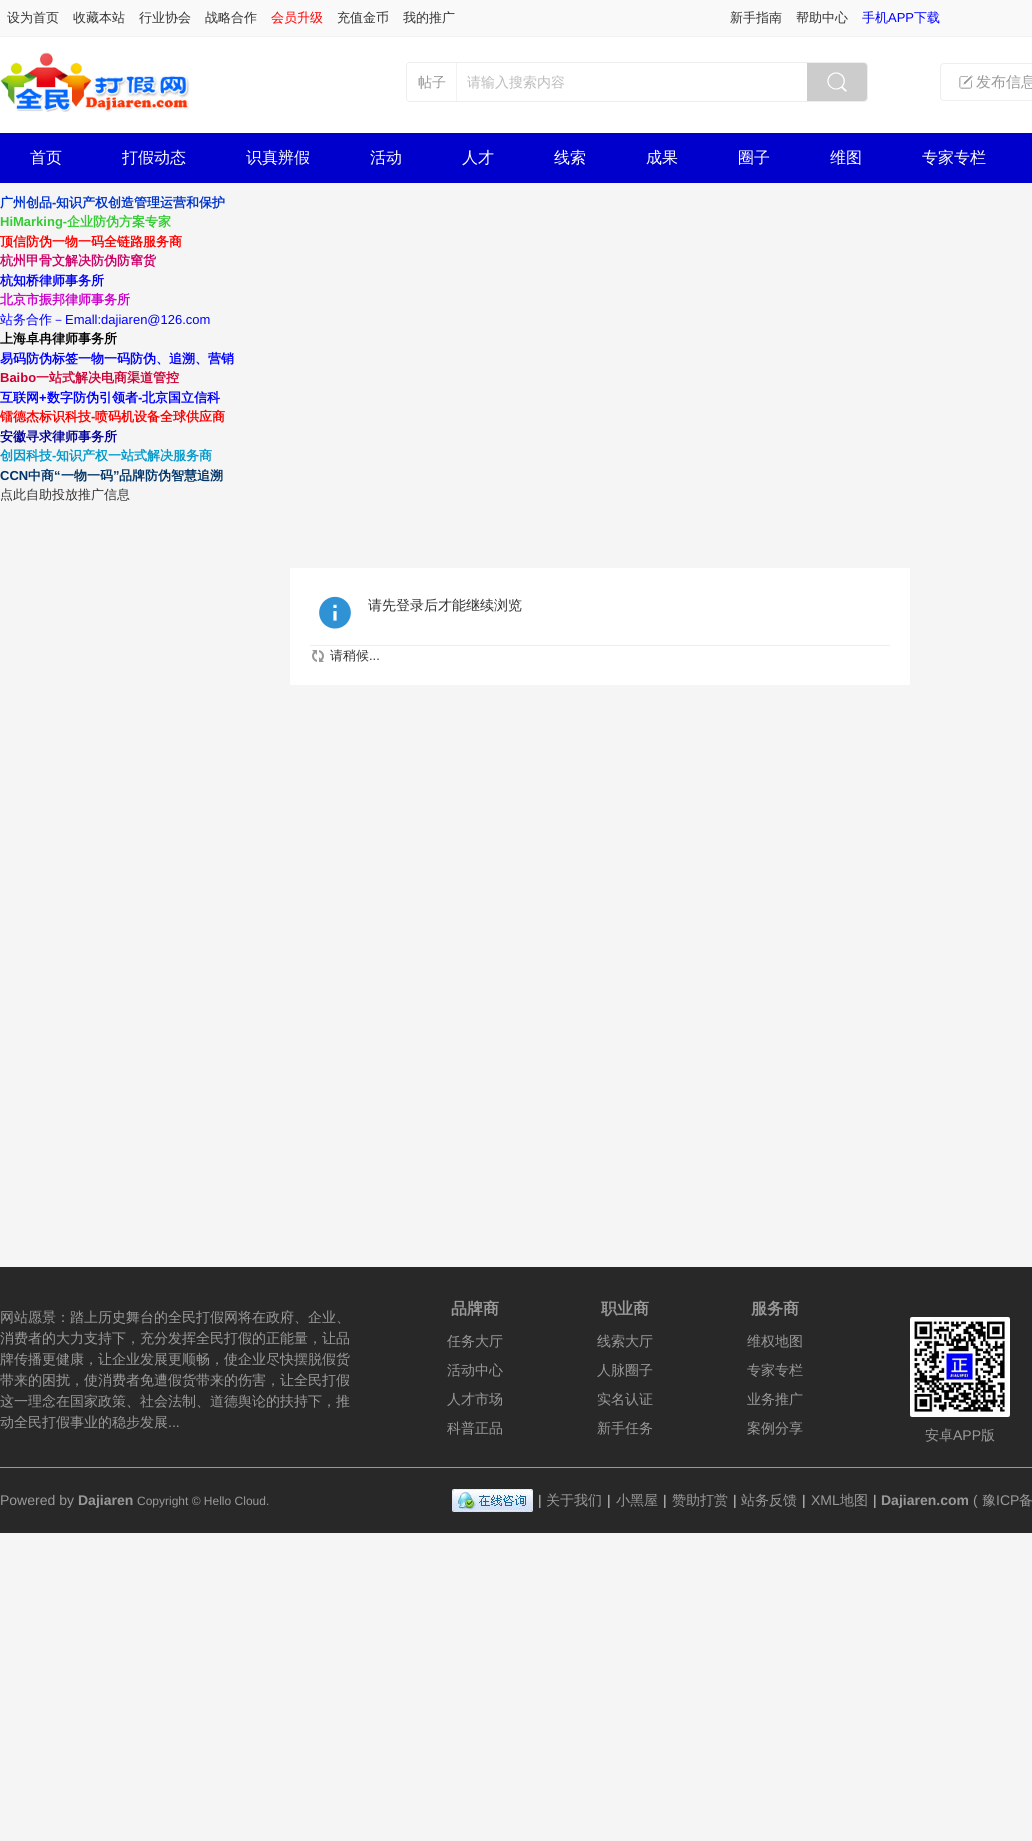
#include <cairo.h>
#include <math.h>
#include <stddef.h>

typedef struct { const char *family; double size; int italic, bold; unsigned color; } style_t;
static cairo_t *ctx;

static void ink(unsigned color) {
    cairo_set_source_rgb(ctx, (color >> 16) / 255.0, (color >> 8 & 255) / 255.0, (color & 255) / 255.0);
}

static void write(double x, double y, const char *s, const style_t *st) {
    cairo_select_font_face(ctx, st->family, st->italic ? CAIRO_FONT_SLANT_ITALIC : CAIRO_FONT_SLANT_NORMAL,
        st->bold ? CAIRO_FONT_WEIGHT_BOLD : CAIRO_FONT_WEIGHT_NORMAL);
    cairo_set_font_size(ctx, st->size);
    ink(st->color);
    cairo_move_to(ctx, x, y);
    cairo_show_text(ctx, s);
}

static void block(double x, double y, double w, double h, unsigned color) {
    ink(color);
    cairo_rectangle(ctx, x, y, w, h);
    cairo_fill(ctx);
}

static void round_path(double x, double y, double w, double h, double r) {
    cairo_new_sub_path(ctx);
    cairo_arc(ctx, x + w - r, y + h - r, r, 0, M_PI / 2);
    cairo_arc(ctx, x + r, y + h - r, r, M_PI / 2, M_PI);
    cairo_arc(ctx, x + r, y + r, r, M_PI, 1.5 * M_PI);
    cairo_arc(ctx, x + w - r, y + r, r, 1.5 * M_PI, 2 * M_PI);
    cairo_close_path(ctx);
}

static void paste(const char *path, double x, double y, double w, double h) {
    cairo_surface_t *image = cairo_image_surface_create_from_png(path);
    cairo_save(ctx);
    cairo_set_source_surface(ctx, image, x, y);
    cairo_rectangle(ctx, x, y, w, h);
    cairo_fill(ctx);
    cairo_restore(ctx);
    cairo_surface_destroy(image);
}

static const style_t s1 = {"WenQuanYi Zen Hei Medium", 13, 0, 0, 0x333333};
static const style_t s2 = {"WenQuanYi Zen Hei Medium", 13, 0, 0, 0xff0000};
static const style_t s3 = {"WenQuanYi Zen Hei Medium", 13, 0, 0, 0x0000ff};
static const style_t s4 = {"Liberation Sans", 13, 0, 0, 0x0000ff};
static const style_t s5 = {"WenQuanYi Zen Hei Medium", 14, 0, 0, 0x999999};
static const style_t s6 = {"WenQuanYi Zen Hei Medium", 14, 0, 0, 0xbbbbbb};
static const style_t s7 = {"WenQuanYi Zen Hei Medium", 15, 0, 0, 0x999999};
static const style_t s8 = {"WenQuanYi Zen Hei Medium", 16, 0, 0, 0xffffff};
static const style_t s9 = {"WenQuanYi Zen Hei", 13, 0, 1, 0x0033cc};
static const style_t s10 = {"Liberation Sans", 13, 0, 1, 0x0033cc};
static const style_t s11 = {"Liberation Sans", 13, 0, 1, 0x33cc33};
static const style_t s12 = {"WenQuanYi Zen Hei", 13, 0, 1, 0x33cc33};
static const style_t s13 = {"WenQuanYi Zen Hei", 13, 0, 1, 0xff0000};
static const style_t s14 = {"WenQuanYi Zen Hei", 13, 0, 1, 0xcc0066};
static const style_t s15 = {"WenQuanYi Zen Hei", 13, 0, 1, 0x0000ff};
static const style_t s16 = {"WenQuanYi Zen Hei", 13, 0, 1, 0xcc00cc};
static const style_t s17 = {"WenQuanYi Zen Hei", 13, 0, 1, 0x000000};
static const style_t s18 = {"Liberation Sans", 13, 0, 1, 0xcc0033};
static const style_t s19 = {"WenQuanYi Zen Hei", 13, 0, 1, 0xcc0033};
static const style_t s20 = {"Liberation Sans", 13, 0, 1, 0x0000ff};
static const style_t s21 = {"Liberation Sans", 13, 0, 1, 0xff0000};
static const style_t s22 = {"WenQuanYi Zen Hei", 13, 0, 1, 0x000099};
static const style_t s23 = {"WenQuanYi Zen Hei", 13, 0, 1, 0x0099cc};
static const style_t s24 = {"Liberation Sans", 13, 0, 1, 0x0099cc};
static const style_t s25 = {"Liberation Sans", 13, 0, 1, 0x003366};
static const style_t s26 = {"WenQuanYi Zen Hei", 13, 0, 1, 0x003366};
static const style_t s27 = {"WenQuanYi Zen Hei Medium", 14, 0, 0, 0x333333};
static const style_t s28 = {"Liberation Sans", 13, 0, 0, 0x333333};
static const style_t s29 = {"Liberation Sans", 14, 0, 0, 0x999999};
static const style_t s30 = {"WenQuanYi Zen Hei", 16, 0, 1, 0x999999};
static const style_t s31 = {"Liberation Sans", 14, 0, 1, 0x999999};
static const style_t s32 = {"Liberation Sans", 12, 0, 0, 0x999999};
static const style_t s33 = {"Liberation Sans", 14, 0, 0, 0xcccccc};

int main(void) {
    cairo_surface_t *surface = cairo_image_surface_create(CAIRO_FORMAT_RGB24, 1032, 1841);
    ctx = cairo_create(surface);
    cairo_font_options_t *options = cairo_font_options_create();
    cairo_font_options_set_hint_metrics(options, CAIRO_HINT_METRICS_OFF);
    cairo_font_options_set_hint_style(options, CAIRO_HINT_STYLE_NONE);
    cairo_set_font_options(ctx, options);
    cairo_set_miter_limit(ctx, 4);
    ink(0xf5f5f5);
    cairo_paint(ctx);
    block(0, 0, 1032, 36, 0xf9f9f9);
    block(0, 36, 1032, 1, 0xf2f2f2);
    write(7, 22, "设为首页", &s1);
    write(73, 22, "收藏本站", &s1);
    write(139, 22, "行业协会", &s1);
    write(205, 22, "战略合作", &s1);
    write(271, 22, "会员升级", &s2);
    write(337, 22, "充值金币", &s1);
    write(403, 22, "我的推广", &s1);
    write(730, 22, "新手指南", &s1);
    write(796, 22, "帮助中心", &s1);
    write(862, 22, "手机", &s3);
    write(888, 22, "APP", &s4);
    write(914, 22, "下载", &s3);
    block(0, 37, 1032, 96, 0xffffff);
    paste("pic1.png", 0, 52, 190, 60);
    round_path(406.5, 62.5, 461, 39, 3.5);
    ink(0xeeeeee);
    cairo_set_line_width(ctx, 1);
    cairo_stroke(ctx);
    ink(0xffffff);
    cairo_new_path(ctx);
    cairo_move_to(ctx, 410, 63);
    cairo_line_to(ctx, 457, 63);
    cairo_line_to(ctx, 457, 101);
    cairo_line_to(ctx, 410, 101);
    cairo_curve_to(ctx, 408.5, 101, 407, 99.5, 407, 98);
    cairo_line_to(ctx, 407, 66);
    cairo_curve_to(ctx, 407, 64.5, 408.5, 63, 410, 63);
    cairo_close_path(ctx);
    cairo_fill(ctx);
    block(456, 63, 1, 38, 0xf2f2f2);
    write(418, 87, "帖子", &s5);
    write(467, 87, "请输入搜索内容", &s6);
    ink(0xcccccc);
    cairo_new_path(ctx);
    cairo_move_to(ctx, 807, 63);
    cairo_line_to(ctx, 864, 63);
    cairo_curve_to(ctx, 865.5, 63, 867, 64.5, 867, 66);
    cairo_line_to(ctx, 867, 98);
    cairo_curve_to(ctx, 867, 99.5, 865.5, 101, 864, 101);
    cairo_line_to(ctx, 807, 101);
    cairo_close_path(ctx);
    cairo_fill(ctx);
    paste("pic2.png", 827, 72, 20, 20);
    round_path(940.5, 63.5, 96, 37, 3.5);
    ink(0xeeeeee);
    cairo_stroke(ctx);
    paste("pic3.png", 959, 75, 14, 14);
    write(976, 87, "发布信息", &s7);
    block(0, 133, 1032, 50, 0x0000cc);
    write(30, 163, "首页", &s8);
    write(122, 163, "打假动态", &s8);
    write(246, 163, "识真辨假", &s8);
    write(370, 163, "活动", &s8);
    write(462, 163, "人才", &s8);
    write(554, 163, "线索", &s8);
    write(646, 163, "成果", &s8);
    write(738, 163, "圈子", &s8);
    write(830, 163, "维图", &s8);
    write(922, 163, "专家专栏", &s8);
    write(0, 207, "广州创品", &s9);
    write(52, 207, "-", &s10);
    write(56, 207, "知识产权创造管理运营和保护", &s9);
    write(0, 226, "HiMarking-", &s11);
    write(67, 226, "企业防伪方案专家", &s12);
    write(0, 246, "顶信防伪一物一码全链路服务商", &s13);
    write(0, 265, "杭州甲骨文解决防伪防窜货", &s14);
    write(0, 285, "杭知桥律师事务所", &s15);
    write(0, 304, "北京市振邦律师事务所", &s16);
    write(0, 324, "站务合作－", &s3);
    write(65, 324, "Emall:dajiaren@126.com", &s4);
    write(0, 343, "上海卓冉律师事务所", &s17);
    write(0, 363, "易码防伪标签一物一码防伪、追溯、营销", &s15);
    write(0, 382, "Baibo", &s18);
    write(36, 382, "一站式解决电商渠道管控", &s19);
    write(0, 402, "互联网", &s15);
    write(39, 402, "+", &s20);
    write(47, 402, "数字防伪引领者", &s15);
    write(138, 402, "-", &s20);
    write(142, 402, "北京国立信科", &s15);
    write(0, 421, "镭德杰标识科技", &s13);
    write(91, 421, "-", &s21);
    write(95, 421, "喷码机设备全球供应商", &s13);
    write(0, 441, "安徽寻求律师事务所", &s22);
    write(0, 460, "创因科技", &s23);
    write(52, 460, "-", &s24);
    write(56, 460, "知识产权一站式解决服务商", &s23);
    write(0, 480, "CCN", &s25);
    write(28, 480, "中商", &s26);
    write(54, 480, "“", &s25);
    write(61, 480, "一物一码", &s26);
    write(113, 480, "”", &s25);
    write(119, 480, "品牌防伪智慧追溯", &s26);
    write(0, 499, "点此自助投放推广信息", &s1);
    block(290, 568, 620, 117, 0xffffff);
    paste("pic4.png", 319, 596, 32, 33);
    write(368, 610, "请先登录后才能继续浏览", &s27);
    block(310, 645, 580, 1, 0xeeeeee);
    paste("pic5.png", 312, 650, 12, 12);
    write(330, 660, "请稍候", &s1);
    write(369, 660, "...", &s28);
    block(0, 1267, 1032, 266, 0x282828);
    block(0, 1467, 1032, 1, 0x999999);
    write(0, 1322, "网站愿景：踏上历史舞台的全民打假网将在政府、企业、", &s5);
    write(0, 1343, "消费者的大力支持下，充分发挥全民打假的正能量，让品", &s5);
    write(0, 1364, "牌传播更健康，让企业发展更顺畅，使企业尽快摆脱假货", &s5);
    write(0, 1385, "带来的困扰，使消费者免遭假货带来的伤害，让全民打假", &s5);
    write(0, 1406, "这一理念在国家政策、社会法制、道德舆论的扶持下，推", &s5);
    write(0, 1427, "动全民打假事业的稳步发展", &s5);
    write(168, 1427, "...", &s29);
    write(451, 1314, "品牌商", &s30);
    write(447, 1346, "任务大厅", &s5);
    write(447, 1375, "活动中心", &s5);
    write(447, 1404, "人才市场", &s5);
    write(447, 1433, "科普正品", &s5);
    write(601, 1314, "职业商", &s30);
    write(597, 1346, "线索大厅", &s5);
    write(597, 1375, "人脉圈子", &s5);
    write(597, 1404, "实名认证", &s5);
    write(597, 1433, "新手任务", &s5);
    write(751, 1314, "服务商", &s30);
    write(747, 1346, "维权地图", &s5);
    write(747, 1375, "专家专栏", &s5);
    write(747, 1404, "业务推广", &s5);
    write(747, 1433, "案例分享", &s5);
    paste("pic6.png", 910, 1317, 100, 100);
    write(925, 1440, "安卓", &s5);
    write(953, 1440, "APP", &s29);
    write(981, 1440, "版", &s5);
    write(0, 1505, "Powered by", &s29);
    write(78, 1505, "Dajiaren", &s31);
    write(137, 1505, "Copyright © Hello Cloud.", &s32);
    paste("pic7.png", 452, 1489, 81, 23);
    write(538, 1505, "|", &s33);
    write(546, 1505, "关于我们", &s5);
    write(607, 1505, "|", &s33);
    write(616, 1505, "小黑屋", &s5);
    write(663, 1505, "|", &s33);
    write(672, 1505, "赞助打赏", &s5);
    write(733, 1505, "|", &s33);
    write(741, 1505, "站务反馈", &s5);
    write(802, 1505, "|", &s33);
    write(811, 1505, "XML", &s29);
    write(840, 1505, "地图", &s5);
    write(873, 1505, "|", &s33);
    write(881, 1505, "Dajiaren.com", &s31);
    write(973, 1505, "(", &s29);
    write(982, 1505, "豫", &s5);
    write(996, 1505, "ICP", &s29);
    write(1019, 1505, "备", &s5);
    cairo_surface_write_to_png(surface, "screenshot.png");
    cairo_font_options_destroy(options);
    cairo_destroy(ctx);
    cairo_surface_destroy(surface);
    return 0;
}
